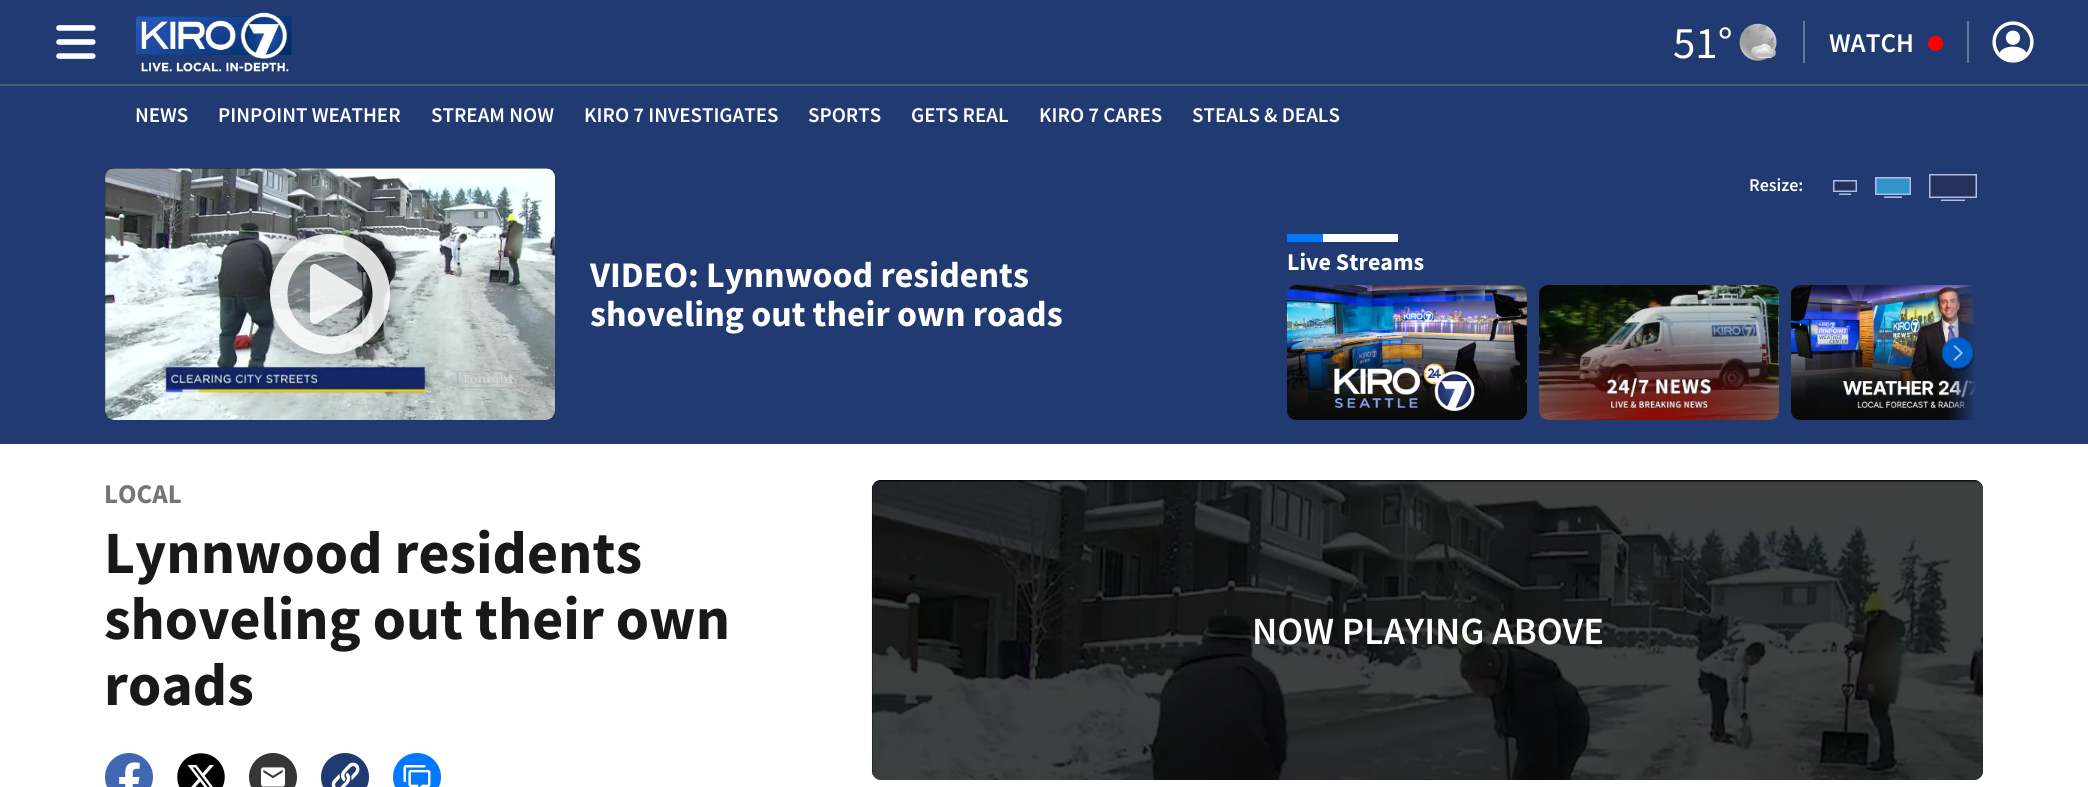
#include <cairo.h>
#include <math.h>
#include <stddef.h>

typedef struct { const char *family; double size; int italic, bold; unsigned color; } style_t;
static cairo_t *ctx;

static void ink(unsigned color) {
    cairo_set_source_rgb(ctx, (color >> 16) / 255.0, (color >> 8 & 255) / 255.0, (color & 255) / 255.0);
}

static void write(double x, double y, const char *s, const style_t *st) {
    cairo_select_font_face(ctx, st->family, st->italic ? CAIRO_FONT_SLANT_ITALIC : CAIRO_FONT_SLANT_NORMAL,
        st->bold ? CAIRO_FONT_WEIGHT_BOLD : CAIRO_FONT_WEIGHT_NORMAL);
    cairo_set_font_size(ctx, st->size);
    ink(st->color);
    cairo_move_to(ctx, x, y);
    cairo_show_text(ctx, s);
}

static void block(double x, double y, double w, double h, unsigned color) {
    ink(color);
    cairo_rectangle(ctx, x, y, w, h);
    cairo_fill(ctx);
}

static void round_path(double x, double y, double w, double h, double r) {
    cairo_new_sub_path(ctx);
    cairo_arc(ctx, x + w - r, y + h - r, r, 0, M_PI / 2);
    cairo_arc(ctx, x + r, y + h - r, r, M_PI / 2, M_PI);
    cairo_arc(ctx, x + r, y + r, r, M_PI, 1.5 * M_PI);
    cairo_arc(ctx, x + w - r, y + r, r, 1.5 * M_PI, 2 * M_PI);
    cairo_close_path(ctx);
}

static void blur_box(double x, double y, double w, double h, double r, double blur, double alpha) {
    cairo_push_group_with_content(ctx, CAIRO_CONTENT_ALPHA);
    cairo_set_operator(ctx, CAIRO_OPERATOR_SOURCE);
    for (int i = 15; i >= -15 && fmin(w, h) + blur * i / 3 > 0; i -= 2) {
        double e = blur * i / 6;
        cairo_set_source_rgba(ctx, 0, 0, 0, alpha * erfc((i - 1) / 8.5) / 2);
        round_path(x - e, y - e, w + 2 * e, h + 2 * e, fmax(0, fmin(r + e + blur * .6, fmin(w, h) / 2 + e)));
        cairo_fill(ctx);
    }
    cairo_pattern_t *soft = cairo_pop_group(ctx);
    cairo_mask(ctx, soft);
    cairo_pattern_destroy(soft);
}

static void paste(const char *path, double x, double y, double w, double h) {
    cairo_surface_t *image = cairo_image_surface_create_from_png(path);
    cairo_save(ctx);
    cairo_set_source_surface(ctx, image, x, y);
    cairo_rectangle(ctx, x, y, w, h);
    cairo_fill(ctx);
    cairo_restore(ctx);
    cairo_surface_destroy(image);
}

static const style_t s1 = {"Source Sans Pro", 45, 0, 0, 0xffffff};
static const style_t s2 = {"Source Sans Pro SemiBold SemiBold", 27, 0, 0, 0xffffff};
static const style_t s3 = {"Source Sans Pro SemiBold SemiBold", 21, 0, 0, 0xffffff};
static const style_t s4 = {"Source Sans Pro SemiBold SemiBold", 18, 0, 0, 0xffffff};
static const style_t s5 = {"Source Sans Pro", 36, 0, 1, 0xffffff};
static const style_t s6 = {"Source Sans Pro", 24, 0, 1, 0xffffff};
static const style_t s7 = {"Source Sans Pro", 27, 0, 1, 0x757575};
static const style_t s8 = {"Source Sans Pro", 60, 0, 1, 0x191919};
static const style_t s9 = {"Source Sans Pro SemiBold SemiBold", 38.5, 0, 0, 0xffffff};

int main(void) {
    cairo_surface_t *surface = cairo_image_surface_create(CAIRO_FORMAT_RGB24, 2088, 787);
    ctx = cairo_create(surface);
    cairo_font_options_t *options = cairo_font_options_create();
    cairo_font_options_set_hint_metrics(options, CAIRO_HINT_METRICS_OFF);
    cairo_font_options_set_hint_style(options, CAIRO_HINT_STYLE_NONE);
    cairo_set_font_options(ctx, options);
    cairo_set_miter_limit(ctx, 4);
    cairo_pattern_t *gradient;
    ink(0xffffff);
    cairo_paint(ctx);
    block(0, 0, 2088, 84, 0x213b72);
    paste("pic1.png", 56, 25, 40, 34);
    paste("pic2.png", 135, 12, 157, 60);
    write(1673, 58, "51°", &s1);
    paste("pic3.png", 1739, 23, 38, 38);
    block(1803, 21, 2, 42, 0x64769c);
    write(1829, 52, "WATCH", &s2);
    ink(0xff0000);
    cairo_new_path(ctx);
    cairo_arc(ctx, 1935.5, 43.5, 7.5, 0, 2 * M_PI);
    cairo_fill(ctx);
    block(1967, 21, 2, 42, 0x64769c);
    paste("pic4.png", 1992, 21, 42, 42);
    block(0, 86, 2088, 358, 0x213b72);
    block(0, 84, 2088, 2, 0x4b5d78);
    write(135, 122, "NEWS", &s3);
    write(218, 122, "PINPOINT WEATHER", &s3);
    write(431, 122, "STREAM NOW", &s3);
    write(584, 122, "KIRO 7 INVESTIGATES", &s3);
    write(808, 122, "SPORTS", &s3);
    write(911, 122, "GETS REAL", &s3);
    write(1039, 122, "KIRO 7 CARES", &s3);
    write(1192, 122, "STEALS & DEALS", &s3);
    ink(0x000000);
    round_path(105, 168, 450, 252, 9);
    cairo_fill(ctx);
    paste("pic5.png", 105, 168, 450, 252);
    cairo_save(ctx);
    cairo_set_fill_rule(ctx, CAIRO_FILL_RULE_EVEN_ODD);
    cairo_new_path(ctx);
    cairo_move_to(ctx, 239, 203);
    cairo_line_to(ctx, 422, 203);
    cairo_line_to(ctx, 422, 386);
    cairo_line_to(ctx, 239, 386);
    cairo_close_path(ctx);
    cairo_move_to(ctx, 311, 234);
    cairo_line_to(ctx, 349, 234);
    cairo_curve_to(ctx, 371.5, 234, 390, 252.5, 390, 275);
    cairo_line_to(ctx, 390, 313);
    cairo_curve_to(ctx, 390, 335.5, 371.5, 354, 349, 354);
    cairo_line_to(ctx, 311, 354);
    cairo_curve_to(ctx, 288.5, 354, 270, 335.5, 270, 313);
    cairo_line_to(ctx, 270, 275);
    cairo_curve_to(ctx, 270, 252.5, 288.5, 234, 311, 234);
    cairo_close_path(ctx);
    cairo_clip(ctx);
    ink(0x000000);
    blur_box(263, 227, 135, 135, 48, 7.5, 0.21);
    cairo_restore(ctx);
    cairo_set_source_rgba(ctx, 0, 0, 0, 0.21);
    round_path(270, 234, 120, 120, 41);
    cairo_fill(ctx);
    paste("pic6.png", 270, 234, 120, 120);
    write(1749, 191, "Resize:", &s4);
    paste("pic7.png", 1833, 180, 24, 15);
    paste("pic8.png", 1875, 177, 36, 21);
    paste("pic9.png", 1929, 174, 48, 27);
    write(590, 287, "VIDEO: Lynnwood residents", &s5);
    write(590, 326, "shoveling out their own roads", &s5);
    block(1323, 234, 75, 8, 0xffffff);
    block(1287, 234, 36, 8, 0x0079ff);
    write(1287, 270, "Live Streams", &s6);
    paste("pic10.png", 1287, 285, 240, 135);
    paste("pic11.png", 1539, 285, 240, 135);
    paste("pic12.png", 1791, 285, 185, 135);
    gradient = cairo_pattern_create_linear(1947, 345, 1983, 345);
    cairo_pattern_add_color_stop_rgba(gradient, 0, 0.129, 0.231, 0.447, 0);
    cairo_pattern_add_color_stop_rgba(gradient, 0.8, 0.129, 0.231, 0.447, 1);
    cairo_set_source(ctx, gradient);
    cairo_pattern_destroy(gradient);
    cairo_rectangle(ctx, 1948, 285, 28, 135);
    cairo_fill(ctx);
    paste("pic13.png", 1941, 337, 34, 35);
    write(104, 503, "LOCAL", &s7);
    write(104, 573, "Lynnwood residents", &s8);
    write(104, 639, "shoveling out their own", &s8);
    write(104, 705, "roads", &s8);
    paste("pic14.png", 105, 753, 48, 34);
    paste("pic15.png", 177, 753, 48, 34);
    paste("pic16.png", 249, 753, 48, 34);
    paste("pic17.png", 321, 753, 48, 34);
    ink(0x0079ff);
    cairo_arc(ctx, 417, 777, 24, 0, 2 * M_PI);
    cairo_fill(ctx);
    paste("pic18.png", 403, 765, 28, 22);
    ink(0x213b72);
    round_path(872, 480, 1111, 300, 9);
    cairo_fill(ctx);
    paste("pic19.png", 871, 480, 1112, 300);
    cairo_set_source_rgba(ctx, 0, 0, 0, 0.75);
    round_path(872, 480, 1111, 300, 9);
    cairo_fill(ctx);
    write(1252, 644, "NOW PLAYING ABOVE", &s9);
    cairo_surface_write_to_png(surface, "screenshot.png");
    cairo_font_options_destroy(options);
    cairo_destroy(ctx);
    cairo_surface_destroy(surface);
    return 0;
}
